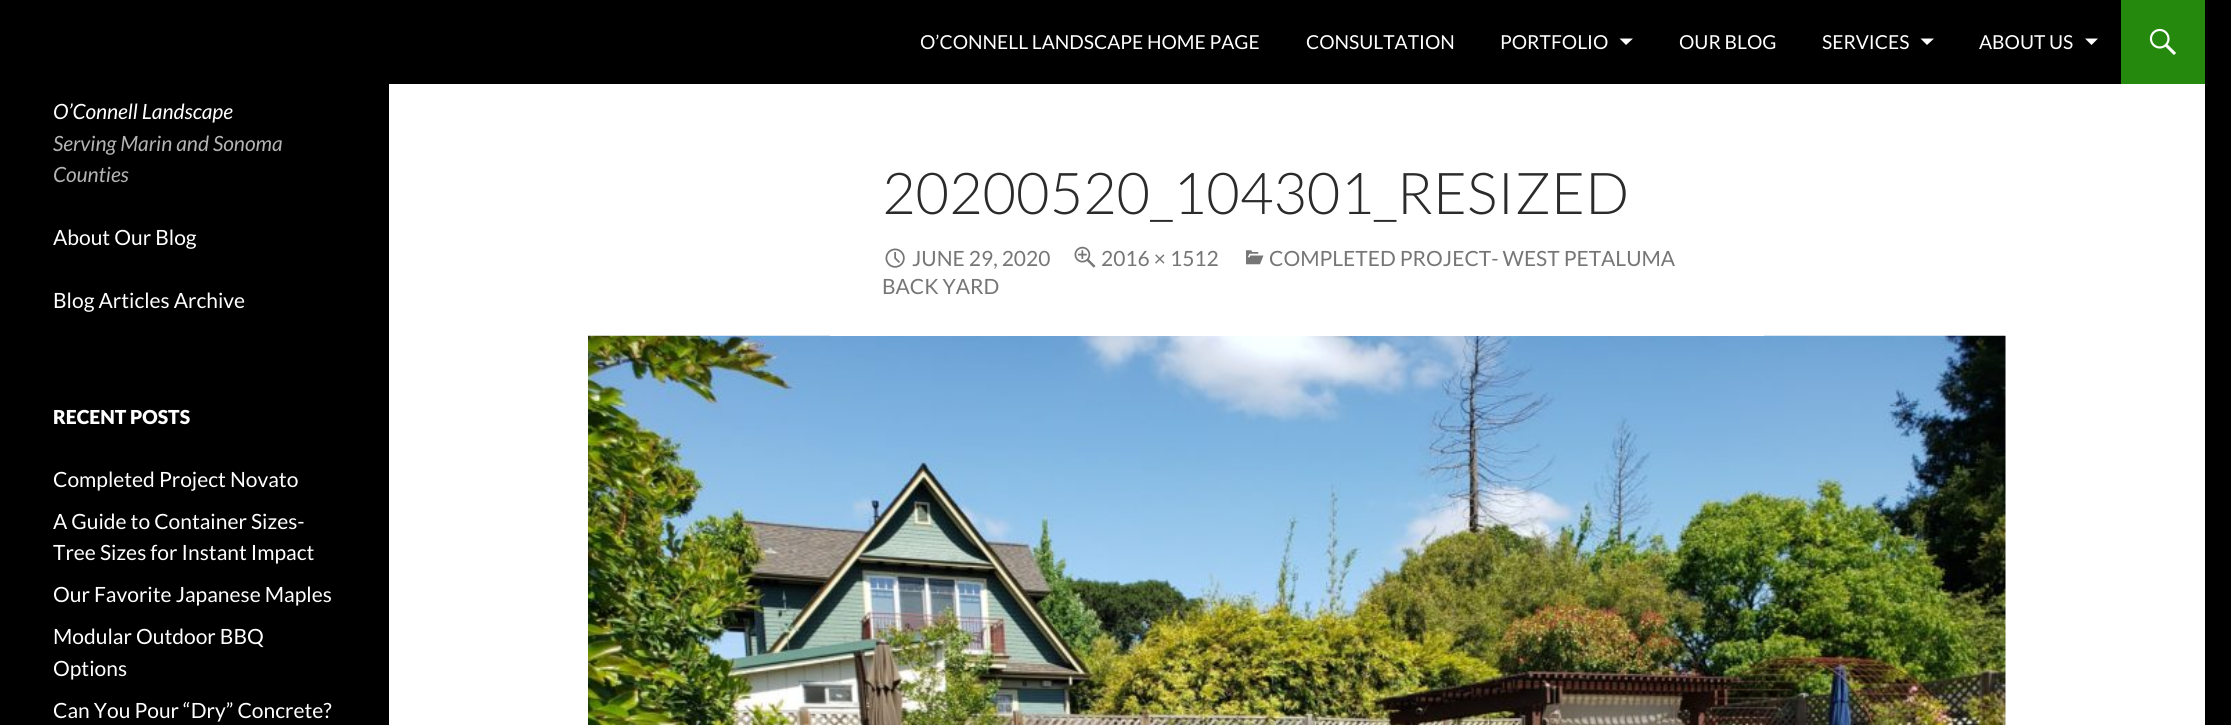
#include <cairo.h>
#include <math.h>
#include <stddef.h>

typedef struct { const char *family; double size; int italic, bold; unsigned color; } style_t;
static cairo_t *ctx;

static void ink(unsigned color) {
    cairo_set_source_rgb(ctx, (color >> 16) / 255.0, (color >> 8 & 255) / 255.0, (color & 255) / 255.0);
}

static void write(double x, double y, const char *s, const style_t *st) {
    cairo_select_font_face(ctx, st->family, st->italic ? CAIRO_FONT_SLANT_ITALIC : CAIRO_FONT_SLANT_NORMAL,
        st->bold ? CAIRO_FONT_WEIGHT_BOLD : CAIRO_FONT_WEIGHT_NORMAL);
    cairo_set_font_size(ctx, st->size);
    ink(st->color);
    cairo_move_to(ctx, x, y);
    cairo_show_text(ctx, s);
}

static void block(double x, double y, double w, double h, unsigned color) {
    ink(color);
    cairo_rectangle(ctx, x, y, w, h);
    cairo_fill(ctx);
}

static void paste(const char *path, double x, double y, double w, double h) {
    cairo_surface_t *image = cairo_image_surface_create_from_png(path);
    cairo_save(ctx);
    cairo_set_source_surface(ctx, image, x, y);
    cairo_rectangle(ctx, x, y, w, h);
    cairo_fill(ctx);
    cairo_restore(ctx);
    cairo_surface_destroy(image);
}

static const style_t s1 = {"Lato", 19.25, 0, 0, 0xffffff};
static const style_t s2 = {"Lato", 21, 1, 0, 0xffffff};
static const style_t s3 = {"Lato", 21, 1, 0, 0xb3b3b3};
static const style_t s4 = {"Lato", 21, 0, 0, 0xffffff};
static const style_t s5 = {"Lato Black", 19.25, 0, 0, 0xffffff};
static const style_t s6 = {"Lato Light", 57.75, 0, 0, 0x2b2b2b};
static const style_t s7 = {"Lato", 21, 0, 0, 0x767676};

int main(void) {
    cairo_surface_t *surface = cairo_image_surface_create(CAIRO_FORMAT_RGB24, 2231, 725);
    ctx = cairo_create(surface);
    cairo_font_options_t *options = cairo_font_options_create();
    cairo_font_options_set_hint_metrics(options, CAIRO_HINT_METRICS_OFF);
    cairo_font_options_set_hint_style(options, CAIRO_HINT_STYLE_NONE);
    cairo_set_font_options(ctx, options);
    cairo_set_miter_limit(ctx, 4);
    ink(0x000000);
    cairo_paint(ctx);
    block(389, 84, 1816, 641, 0xffffff);
    write(920, 49, "O’CONNELL LANDSCAPE HOME PAGE", &s1);
    write(1306, 49, "CONSULTATION", &s1);
    write(1500, 49, "PORTFOLIO", &s1);
    cairo_new_path(ctx);
    cairo_move_to(ctx, 1619.5, 38.5);
    cairo_line_to(ctx, 1626, 45);
    cairo_line_to(ctx, 1633, 38.5);
    cairo_close_path(ctx);
    cairo_fill(ctx);
    write(1679, 49, "OUR BLOG", &s1);
    write(1822, 49, "SERVICES", &s1);
    cairo_new_path(ctx);
    cairo_move_to(ctx, 1920.5, 38.5);
    cairo_line_to(ctx, 1927, 45);
    cairo_line_to(ctx, 1934, 38.5);
    cairo_close_path(ctx);
    cairo_fill(ctx);
    write(1979, 49, "ABOUT US", &s1);
    cairo_new_path(ctx);
    cairo_move_to(ctx, 2085, 38.5);
    cairo_line_to(ctx, 2091.5, 45);
    cairo_line_to(ctx, 2098, 38.5);
    cairo_close_path(ctx);
    cairo_fill(ctx);
    block(2121, 0, 84, 84, 0x24890d);
    paste("pic1.png", 2149, 28, 27, 27);
    write(53, 119, "O’Connell Landscape", &s2);
    write(53, 151, "Serving Marin and Sonoma", &s3);
    write(53, 182, "Counties", &s3);
    write(53, 245, "About Our Blog", &s4);
    write(53, 308, "Blog Articles Archive", &s4);
    write(53, 424, "RECENT POSTS", &s5);
    write(53, 487, "Completed Project Novato", &s4);
    write(53, 529, "A Guide to Container Sizes-", &s4);
    write(53, 560, "Tree Sizes for Instant Impact", &s4);
    write(53, 602, "Our Favorite Japanese Maples", &s4);
    write(53, 644, "Modular Outdoor BBQ", &s4);
    write(53, 676, "Options", &s4);
    write(53, 718, "Can You Pour “Dry” Concrete?", &s4);
    paste("pic5.png", 588, 335, 1418, 390);
    block(830, 335, 934, 1, 0xffffff);
    write(882, 214, "20200520_104301_RESIZED", &s6);
    paste("pic2.png", 1246, 250, 18, 15);
    write(1269, 266, "COMPLETED PROJECT- WEST PETALUMA", &s7);
    write(882, 294, "BACK YARD", &s7);
    paste("pic3.png", 885, 248, 20, 20);
    write(912, 266, "JUNE 29, 2020", &s7);
    paste("pic4.png", 1074, 246, 22, 22);
    write(1101, 266, "2016 × 1512", &s7);
    cairo_surface_write_to_png(surface, "screenshot.png");
    cairo_font_options_destroy(options);
    cairo_destroy(ctx);
    cairo_surface_destroy(surface);
    return 0;
}
